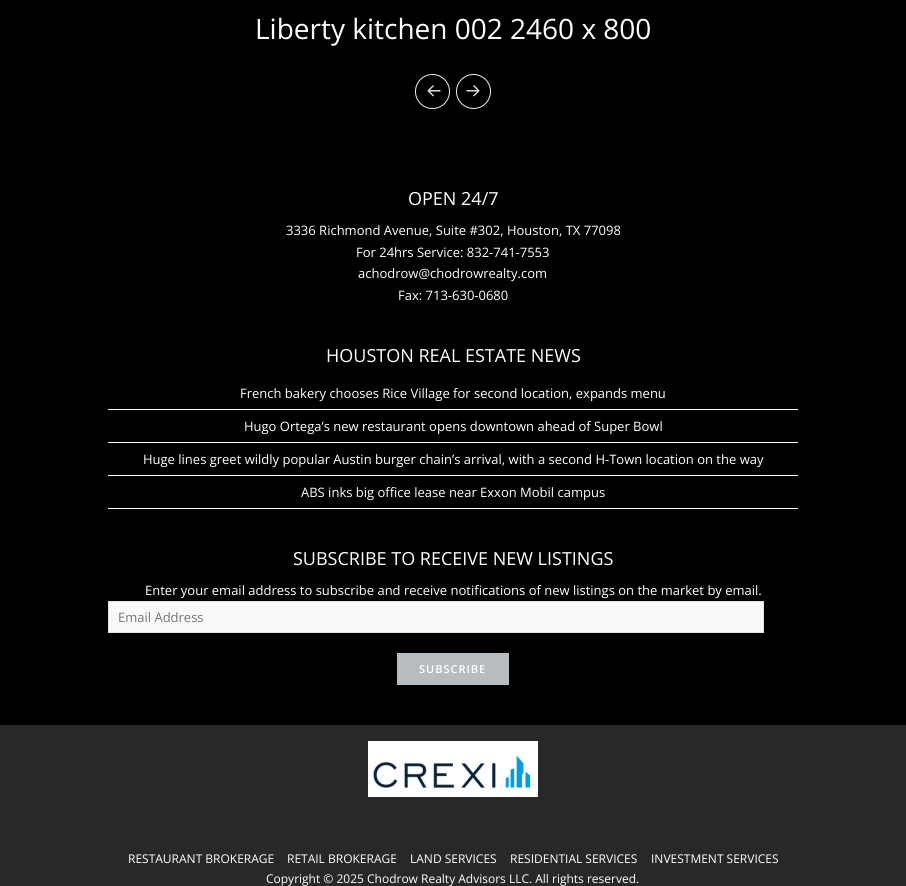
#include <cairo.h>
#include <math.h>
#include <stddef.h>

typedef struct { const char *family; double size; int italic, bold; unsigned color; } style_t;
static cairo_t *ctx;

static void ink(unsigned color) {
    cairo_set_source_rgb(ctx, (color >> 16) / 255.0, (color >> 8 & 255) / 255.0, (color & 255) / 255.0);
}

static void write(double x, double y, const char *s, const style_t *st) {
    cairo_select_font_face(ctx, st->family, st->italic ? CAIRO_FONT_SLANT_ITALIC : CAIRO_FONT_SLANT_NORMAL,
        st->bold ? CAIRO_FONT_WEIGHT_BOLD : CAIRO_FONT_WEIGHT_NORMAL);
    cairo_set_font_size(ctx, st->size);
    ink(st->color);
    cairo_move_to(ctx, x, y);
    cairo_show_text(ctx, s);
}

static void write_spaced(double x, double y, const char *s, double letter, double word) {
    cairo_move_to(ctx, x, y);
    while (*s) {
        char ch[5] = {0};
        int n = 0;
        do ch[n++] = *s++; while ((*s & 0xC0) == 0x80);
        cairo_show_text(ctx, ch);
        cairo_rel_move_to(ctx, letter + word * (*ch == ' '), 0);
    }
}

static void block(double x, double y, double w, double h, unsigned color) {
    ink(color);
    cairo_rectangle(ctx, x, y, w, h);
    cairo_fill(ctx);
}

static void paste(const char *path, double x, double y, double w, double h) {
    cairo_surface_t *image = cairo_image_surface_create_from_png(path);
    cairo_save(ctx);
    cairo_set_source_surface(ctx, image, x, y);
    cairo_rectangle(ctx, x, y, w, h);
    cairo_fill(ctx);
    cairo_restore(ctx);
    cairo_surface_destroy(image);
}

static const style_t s1 = {"Open Sans", 28, 0, 0, 0xffffff};
static const style_t s2 = {"Open Sans", 18, 0, 0, 0xffffff};
static const style_t s3 = {"Open Sans", 13, 0, 0, 0xffffff};
static const style_t s4 = {"Open Sans", 13, 0, 0, 0x757575};
static const style_t s5 = {"Open Sans", 12, 0, 0, 0xffffff};

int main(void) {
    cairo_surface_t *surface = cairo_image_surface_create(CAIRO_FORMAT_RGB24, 906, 886);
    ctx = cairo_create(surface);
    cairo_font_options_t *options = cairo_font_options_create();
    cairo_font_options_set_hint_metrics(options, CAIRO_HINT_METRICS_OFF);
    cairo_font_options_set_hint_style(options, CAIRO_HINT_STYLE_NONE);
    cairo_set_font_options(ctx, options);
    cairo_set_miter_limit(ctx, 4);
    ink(0x000000);
    cairo_paint(ctx);
    write(255, 39, "Liberty kitchen 002 2460 x 800", &s1);
    cairo_new_path(ctx);
    cairo_arc(ctx, 432.5, 91.5, 17, 0, 2 * M_PI);
    ink(0xededed);
    cairo_set_line_width(ctx, 1);
    cairo_stroke(ctx);
    paste("pic1.png", 427, 85, 14, 12);
    cairo_arc(ctx, 473.5, 91.5, 17, 0, 2 * M_PI);
    cairo_stroke(ctx);
    paste("pic2.png", 466, 85, 14, 12);
    write(408, 205, "OPEN 24/7", &s2);
    write(286, 235, "3336 Richmond Avenue, Suite #302, Houston, TX 77098", &s3);
    write(356, 257, "For 24hrs Service: 832-741-7553", &s3);
    write(358, 278, "achodrow@chodrowrealty.com", &s3);
    write(398, 300, "Fax: 713-630-0680", &s3);
    write(326, 362, "HOUSTON REAL ESTATE NEWS", &s2);
    block(108, 409, 690, 1, 0xffffff);
    write(240, 398, "French bakery chooses Rice Village for second location, expands menu", &s3);
    block(108, 442, 690, 1, 0xffffff);
    write(244, 431, "Hugo Ortega’s new restaurant opens downtown ahead of Super Bowl", &s3);
    block(108, 475, 690, 1, 0xffffff);
    write(143, 464, "Huge lines greet wildly popular Austin burger chain’s arrival, with a second H-Town location on the way", &s3);
    block(108, 508, 690, 1, 0xffffff);
    write(301, 497, "ABS inks big office lease near Exxon Mobil campus", &s3);
    write(293, 565, "SUBSCRIBE TO RECEIVE NEW LISTINGS", &s2);
    write(145, 595, "Enter your email address to subscribe and receive notifications of new listings on the market by email.", &s3);
    ink(0xf9f9f9);
    cairo_rectangle(ctx, 108.5, 601.5, 655, 31);
    cairo_fill_preserve(ctx);
    ink(0xe2e2e2);
    cairo_stroke(ctx);
    write(118, 622, "Email Address", &s4);
    block(397, 653, 112, 32, 0xb7bcc1);
    cairo_select_font_face(ctx, "Open Sans SemiBold", CAIRO_FONT_SLANT_NORMAL, CAIRO_FONT_WEIGHT_NORMAL);
    cairo_set_font_size(ctx, 11);
    ink(0xffffff);
    write_spaced(419, 673, "SUBSCRIBE", 1, 0);
    block(0, 725, 906, 161, 0x282828);
    paste("pic3.png", 368, 741, 170, 56);
    write(128, 863, "RESTAURANT BROKERAGE", &s5);
    write(287, 863, "RETAIL BROKERAGE", &s5);
    write(410, 863, "LAND SERVICES", &s5);
    write(510, 863, "RESIDENTIAL SERVICES", &s5);
    write(651, 863, "INVESTMENT SERVICES", &s5);
    write(266, 883, "Copyright © 2025 Chodrow Realty Advisors LLC. All rights reserved.", &s5);
    cairo_surface_write_to_png(surface, "screenshot.png");
    cairo_font_options_destroy(options);
    cairo_destroy(ctx);
    cairo_surface_destroy(surface);
    return 0;
}
